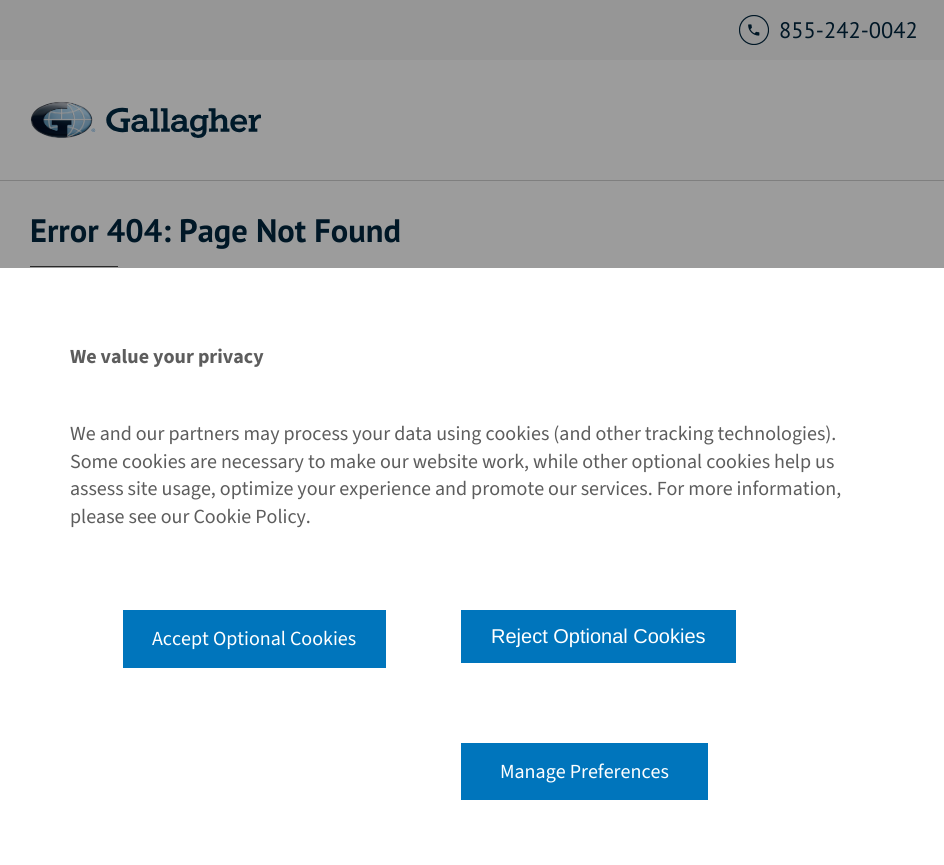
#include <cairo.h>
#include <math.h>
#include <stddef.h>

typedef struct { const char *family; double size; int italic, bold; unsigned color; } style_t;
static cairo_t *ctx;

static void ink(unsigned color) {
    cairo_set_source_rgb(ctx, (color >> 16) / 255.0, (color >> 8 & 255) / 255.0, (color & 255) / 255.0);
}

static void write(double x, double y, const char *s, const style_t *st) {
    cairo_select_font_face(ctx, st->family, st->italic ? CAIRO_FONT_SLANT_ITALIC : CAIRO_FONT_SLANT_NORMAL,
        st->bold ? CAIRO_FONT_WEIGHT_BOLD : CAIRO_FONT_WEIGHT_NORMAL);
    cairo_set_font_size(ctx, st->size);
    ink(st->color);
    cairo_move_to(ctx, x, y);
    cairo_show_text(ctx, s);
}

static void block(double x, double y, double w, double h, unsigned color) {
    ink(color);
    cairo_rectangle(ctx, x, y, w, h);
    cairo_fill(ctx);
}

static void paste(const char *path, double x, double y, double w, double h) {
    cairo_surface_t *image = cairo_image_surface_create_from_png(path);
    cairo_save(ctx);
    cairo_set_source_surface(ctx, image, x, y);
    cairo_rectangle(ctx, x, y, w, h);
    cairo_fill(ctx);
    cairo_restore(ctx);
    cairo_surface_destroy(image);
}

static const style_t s1 = {"PT Sans", 22.5, 0, 0, 0x001726};
static const style_t s2 = {"PT Sans", 32.5, 0, 1, 0x001726};
static const style_t s3 = {"Source Sans 3", 20, 0, 1, 0x5d5d5d};
static const style_t s4 = {"Source Sans 3", 20, 0, 0, 0x5d5d5d};
static const style_t s5 = {"Source Sans 3", 20, 0, 0, 0xffffff};
static const style_t s6 = {"Liberation Sans", 20, 0, 0, 0xffffff};

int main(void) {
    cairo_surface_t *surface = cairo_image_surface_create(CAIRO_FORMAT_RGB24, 944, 865);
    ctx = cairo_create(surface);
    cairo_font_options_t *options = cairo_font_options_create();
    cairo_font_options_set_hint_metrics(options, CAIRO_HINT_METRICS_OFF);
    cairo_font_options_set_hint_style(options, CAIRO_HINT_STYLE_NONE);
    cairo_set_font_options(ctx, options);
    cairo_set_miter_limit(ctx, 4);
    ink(0x9c9c9c);
    cairo_paint(ctx);
    block(0, 0, 944, 60, 0x969696);
    paste("pic1.png", 739, 15, 30, 30);
    write(779, 38, "855-242-0042", &s1);
    block(0, 180, 944, 1, 0x7f7f7f);
    paste("pic2.png", 30, 101, 231, 37);
    write(30, 242, "Error 404: Page Not Found", &s2);
    block(30, 266, 88, 1, 0x292929);
    block(0, 268, 944, 597, 0xffffff);
    write(70, 363, "We value your privacy", &s3);
    write(70, 440, "We and our partners may process your data using cookies (and other tracking technologies).", &s4);
    write(70, 468, "Some cookies are necessary to make our website work, while other optional cookies help us", &s4);
    write(70, 495, "assess site usage, optimize your experience and promote our services. For more information,", &s4);
    write(70, 523, "please see our Cookie Policy.", &s4);
    block(123, 610, 263, 58, 0x0075bc);
    write(152, 645, "Accept Optional Cookies", &s5);
    block(461, 610, 275, 53, 0x0075bc);
    write(491, 643, "Reject Optional Cookies", &s6);
    block(461, 743, 247, 57, 0x0075bc);
    write(500, 778, "Manage Preferences", &s5);
    cairo_surface_write_to_png(surface, "screenshot.png");
    cairo_font_options_destroy(options);
    cairo_destroy(ctx);
    cairo_surface_destroy(surface);
    return 0;
}
